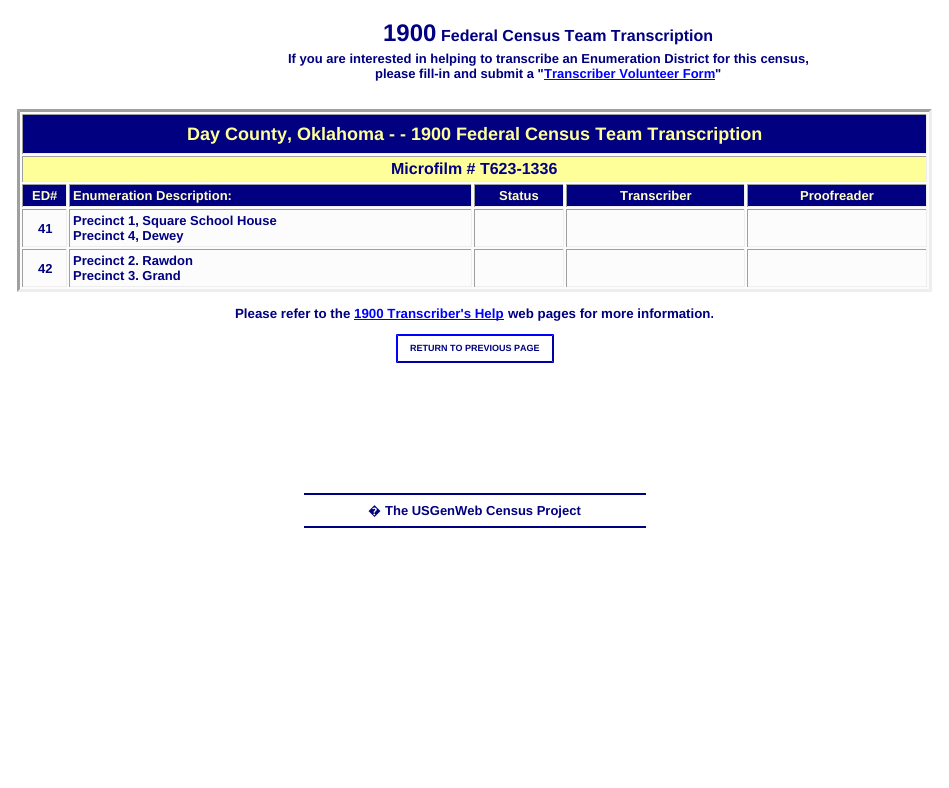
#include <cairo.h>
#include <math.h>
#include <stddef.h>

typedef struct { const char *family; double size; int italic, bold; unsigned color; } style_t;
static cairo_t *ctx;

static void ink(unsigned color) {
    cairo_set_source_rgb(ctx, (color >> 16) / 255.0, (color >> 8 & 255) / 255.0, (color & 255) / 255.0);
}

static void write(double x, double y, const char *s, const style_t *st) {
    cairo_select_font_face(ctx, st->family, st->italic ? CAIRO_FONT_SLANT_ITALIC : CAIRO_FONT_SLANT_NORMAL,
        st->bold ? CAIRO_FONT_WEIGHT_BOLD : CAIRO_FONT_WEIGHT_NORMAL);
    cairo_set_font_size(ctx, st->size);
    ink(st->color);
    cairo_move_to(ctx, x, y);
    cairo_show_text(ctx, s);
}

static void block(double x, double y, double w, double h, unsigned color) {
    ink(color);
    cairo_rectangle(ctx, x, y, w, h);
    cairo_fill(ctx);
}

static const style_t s1 = {"Liberation Sans", 24, 0, 1, 0x000080};
static const style_t s2 = {"Liberation Sans", 16, 0, 1, 0x000080};
static const style_t s3 = {"Liberation Sans", 13, 0, 1, 0x000080};
static const style_t s4 = {"Liberation Sans", 13, 0, 1, 0x0000ff};
static const style_t s5 = {"Liberation Sans", 18, 0, 1, 0xffff99};
static const style_t s6 = {"Liberation Sans", 13, 0, 1, 0xffffcc};
static const style_t s7 = {"Liberation Sans", 13.3, 0, 1, 0x000080};
static const style_t s8 = {"Liberation Sans", 13.3, 0, 1, 0x0000ff};
static const style_t s9 = {"Liberation Sans", 9, 0, 1, 0x000080};
static const style_t s10 = {"Noto Sans Black", 13, 0, 0, 0x000080};

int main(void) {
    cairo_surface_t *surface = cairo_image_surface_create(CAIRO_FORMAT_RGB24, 949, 788);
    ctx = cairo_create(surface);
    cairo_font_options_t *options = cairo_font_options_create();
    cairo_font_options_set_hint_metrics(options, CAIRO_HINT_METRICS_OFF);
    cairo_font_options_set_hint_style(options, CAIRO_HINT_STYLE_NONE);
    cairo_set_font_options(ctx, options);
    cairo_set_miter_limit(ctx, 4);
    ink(0xffffff);
    cairo_paint(ctx);
    write(383, 41, "1900", &s1);
    write(441, 41, "Federal Census Team Transcription", &s2);
    write(288, 63, "If you are interested in helping to transcribe an Enumeration District for this census,", &s3);
    write(375, 78, "please fill-in and submit a \"", &s3);
    block(544, 79, 171, 1, 0x0000ff);
    write(544, 78, "Transcriber Volunteer Form", &s4);
    write(715, 78, "\"", &s3);
    block(17, 109, 915, 183, 0xfcfcfc);
    ink(0x9f9f9f);
    cairo_new_path(ctx);
    cairo_move_to(ctx, 17, 109);
    cairo_line_to(ctx, 932, 109);
    cairo_line_to(ctx, 929, 112);
    cairo_line_to(ctx, 20, 112);
    cairo_close_path(ctx);
    cairo_fill(ctx);
    ink(0xeeeeee);
    cairo_new_path(ctx);
    cairo_move_to(ctx, 932, 109);
    cairo_line_to(ctx, 932, 292);
    cairo_line_to(ctx, 929, 289);
    cairo_line_to(ctx, 929, 112);
    cairo_close_path(ctx);
    cairo_fill(ctx);
    cairo_new_path(ctx);
    cairo_move_to(ctx, 932, 292);
    cairo_line_to(ctx, 17, 292);
    cairo_line_to(ctx, 20, 289);
    cairo_line_to(ctx, 929, 289);
    cairo_close_path(ctx);
    cairo_fill(ctx);
    ink(0x9f9f9f);
    cairo_new_path(ctx);
    cairo_move_to(ctx, 17, 292);
    cairo_line_to(ctx, 17, 109);
    cairo_line_to(ctx, 20, 112);
    cairo_line_to(ctx, 20, 289);
    cairo_close_path(ctx);
    cairo_fill(ctx);
    block(23, 115, 903, 38, 0x000080);
    block(22, 114, 905, 1, 0x9f9f9f);
    block(926, 114, 1, 40, 0xeeeeee);
    block(22, 153, 905, 1, 0xeeeeee);
    block(22, 114, 1, 40, 0x9f9f9f);
    write(187, 140, "Day County, Oklahoma - - 1900 Federal Census Team Transcription", &s5);
    block(23, 157, 903, 24, 0xffff99);
    block(22, 156, 905, 1, 0x9f9f9f);
    block(926, 156, 1, 26, 0xeeeeee);
    block(22, 181, 905, 1, 0xeeeeee);
    block(22, 156, 1, 26, 0x9f9f9f);
    write(391, 174, "Microfilm # T623-1336", &s2);
    block(23, 185, 43, 21, 0x000080);
    block(22, 184, 45, 1, 0x9f9f9f);
    block(66, 184, 1, 23, 0xeeeeee);
    block(22, 206, 45, 1, 0xeeeeee);
    block(22, 184, 1, 23, 0x9f9f9f);
    write(32, 200, "ED#", &s6);
    block(70, 185, 401, 21, 0x000080);
    block(69, 184, 403, 1, 0x9f9f9f);
    block(471, 184, 1, 23, 0xeeeeee);
    block(69, 206, 403, 1, 0xeeeeee);
    block(69, 184, 1, 23, 0x9f9f9f);
    write(73, 200, "Enumeration Description:", &s6);
    block(475, 185, 88, 21, 0x000080);
    block(474, 184, 90, 1, 0x9f9f9f);
    block(563, 184, 1, 23, 0xeeeeee);
    block(474, 206, 90, 1, 0xeeeeee);
    block(474, 184, 1, 23, 0x9f9f9f);
    write(499, 200, "Status", &s6);
    block(567, 185, 177, 21, 0x000080);
    block(566, 184, 179, 1, 0x9f9f9f);
    block(744, 184, 1, 23, 0xeeeeee);
    block(566, 206, 179, 1, 0xeeeeee);
    block(566, 184, 1, 23, 0x9f9f9f);
    write(620, 200, "Transcriber", &s6);
    block(748, 185, 178, 21, 0x000080);
    block(747, 184, 180, 1, 0x9f9f9f);
    block(926, 184, 1, 23, 0xeeeeee);
    block(747, 206, 180, 1, 0xeeeeee);
    block(747, 184, 1, 23, 0x9f9f9f);
    write(800, 200, "Proofreader", &s6);
    block(22, 209, 45, 1, 0x9f9f9f);
    block(66, 209, 1, 38, 0xeeeeee);
    block(22, 246, 45, 1, 0xeeeeee);
    block(22, 209, 1, 38, 0x9f9f9f);
    write(38, 233, "41", &s3);
    block(69, 209, 403, 1, 0x9f9f9f);
    block(471, 209, 1, 38, 0xeeeeee);
    block(69, 246, 403, 1, 0xeeeeee);
    block(69, 209, 1, 38, 0x9f9f9f);
    write(73, 225, "Precinct 1, Square School House", &s3);
    write(73, 240, "Precinct 4, Dewey", &s3);
    block(474, 209, 90, 1, 0x9f9f9f);
    block(563, 209, 1, 38, 0xeeeeee);
    block(474, 246, 90, 1, 0xeeeeee);
    block(474, 209, 1, 38, 0x9f9f9f);
    block(566, 209, 179, 1, 0x9f9f9f);
    block(744, 209, 1, 38, 0xeeeeee);
    block(566, 246, 179, 1, 0xeeeeee);
    block(566, 209, 1, 38, 0x9f9f9f);
    block(747, 209, 180, 1, 0x9f9f9f);
    block(926, 209, 1, 38, 0xeeeeee);
    block(747, 246, 180, 1, 0xeeeeee);
    block(747, 209, 1, 38, 0x9f9f9f);
    block(22, 249, 45, 1, 0x9f9f9f);
    block(66, 249, 1, 38, 0xeeeeee);
    block(22, 286, 45, 1, 0xeeeeee);
    block(22, 249, 1, 38, 0x9f9f9f);
    write(38, 273, "42", &s3);
    block(69, 249, 403, 1, 0x9f9f9f);
    block(471, 249, 1, 38, 0xeeeeee);
    block(69, 286, 403, 1, 0xeeeeee);
    block(69, 249, 1, 38, 0x9f9f9f);
    write(73, 265, "Precinct 2. Rawdon", &s3);
    write(73, 280, "Precinct 3. Grand", &s3);
    block(474, 249, 90, 1, 0x9f9f9f);
    block(563, 249, 1, 38, 0xeeeeee);
    block(474, 286, 90, 1, 0xeeeeee);
    block(474, 249, 1, 38, 0x9f9f9f);
    block(566, 249, 179, 1, 0x9f9f9f);
    block(744, 249, 1, 38, 0xeeeeee);
    block(566, 286, 179, 1, 0xeeeeee);
    block(566, 249, 1, 38, 0x9f9f9f);
    block(747, 249, 180, 1, 0x9f9f9f);
    block(926, 249, 1, 38, 0xeeeeee);
    block(747, 286, 180, 1, 0xeeeeee);
    block(747, 249, 1, 38, 0x9f9f9f);
    write(235, 318, "Please refer to the", &s7);
    block(354, 319, 150, 1, 0x0000ff);
    write(354, 318, "1900 Transcriber's Help", &s8);
    write(508, 318, "web pages for more information.", &s7);
    ink(0x0000ff);
    cairo_new_path(ctx);
    cairo_move_to(ctx, 396, 334);
    cairo_line_to(ctx, 554, 334);
    cairo_line_to(ctx, 552, 336);
    cairo_line_to(ctx, 398, 336);
    cairo_close_path(ctx);
    cairo_fill(ctx);
    ink(0x0000aa);
    cairo_new_path(ctx);
    cairo_move_to(ctx, 554, 334);
    cairo_line_to(ctx, 554, 363);
    cairo_line_to(ctx, 552, 361);
    cairo_line_to(ctx, 552, 336);
    cairo_close_path(ctx);
    cairo_fill(ctx);
    cairo_new_path(ctx);
    cairo_move_to(ctx, 554, 363);
    cairo_line_to(ctx, 396, 363);
    cairo_line_to(ctx, 398, 361);
    cairo_line_to(ctx, 552, 361);
    cairo_close_path(ctx);
    cairo_fill(ctx);
    ink(0x0000ff);
    cairo_new_path(ctx);
    cairo_move_to(ctx, 396, 363);
    cairo_line_to(ctx, 396, 334);
    cairo_line_to(ctx, 398, 336);
    cairo_line_to(ctx, 398, 361);
    cairo_close_path(ctx);
    cairo_fill(ctx);
    write(410, 351, "RETURN TO PREVIOUS PAGE", &s9);
    block(304, 493, 342, 2, 0x000080);
    write(368, 515, "�", &s10);
    write(385, 515, "The USGenWeb Census Project", &s3);
    block(304, 526, 342, 2, 0x000080);
    cairo_surface_write_to_png(surface, "screenshot.png");
    cairo_font_options_destroy(options);
    cairo_destroy(ctx);
    cairo_surface_destroy(surface);
    return 0;
}
